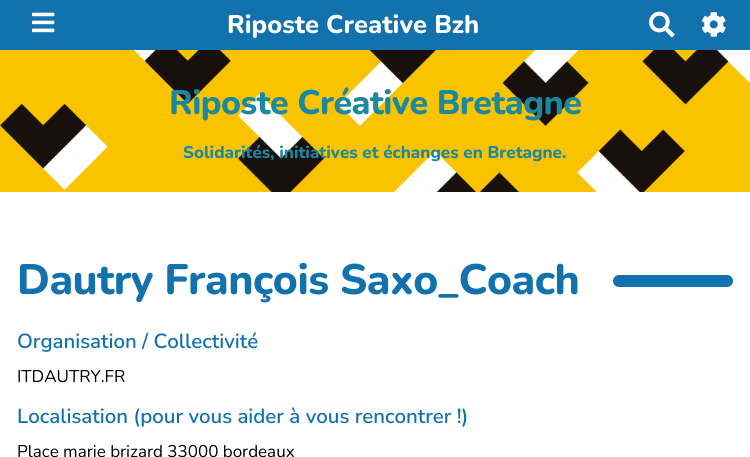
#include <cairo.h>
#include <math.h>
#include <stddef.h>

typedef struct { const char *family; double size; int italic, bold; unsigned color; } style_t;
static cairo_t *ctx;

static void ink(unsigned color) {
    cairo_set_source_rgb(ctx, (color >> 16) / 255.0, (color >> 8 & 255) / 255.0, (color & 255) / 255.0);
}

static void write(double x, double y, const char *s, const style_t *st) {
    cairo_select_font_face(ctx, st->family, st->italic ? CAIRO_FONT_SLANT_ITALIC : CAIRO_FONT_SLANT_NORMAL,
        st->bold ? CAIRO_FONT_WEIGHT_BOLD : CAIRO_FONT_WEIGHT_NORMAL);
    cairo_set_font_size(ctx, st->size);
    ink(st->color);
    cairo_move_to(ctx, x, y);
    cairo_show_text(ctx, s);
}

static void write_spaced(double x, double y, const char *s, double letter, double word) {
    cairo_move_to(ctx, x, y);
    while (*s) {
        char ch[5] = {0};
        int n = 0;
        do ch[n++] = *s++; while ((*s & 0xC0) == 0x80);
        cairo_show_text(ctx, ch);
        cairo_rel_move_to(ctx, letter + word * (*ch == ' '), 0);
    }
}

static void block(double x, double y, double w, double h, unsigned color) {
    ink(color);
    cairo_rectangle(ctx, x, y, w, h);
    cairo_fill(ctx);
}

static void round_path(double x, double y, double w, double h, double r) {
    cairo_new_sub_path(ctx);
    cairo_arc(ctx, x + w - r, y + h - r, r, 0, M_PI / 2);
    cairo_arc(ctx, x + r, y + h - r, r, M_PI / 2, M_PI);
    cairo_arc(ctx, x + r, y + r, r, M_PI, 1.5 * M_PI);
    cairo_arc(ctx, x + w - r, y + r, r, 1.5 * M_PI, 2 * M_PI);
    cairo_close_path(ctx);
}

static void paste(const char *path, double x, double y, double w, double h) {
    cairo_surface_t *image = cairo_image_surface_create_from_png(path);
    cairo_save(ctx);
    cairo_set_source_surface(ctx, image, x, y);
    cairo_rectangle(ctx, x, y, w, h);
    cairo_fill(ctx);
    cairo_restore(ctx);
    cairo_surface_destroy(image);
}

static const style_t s1 = {"Nunito ExtraBold", 25.5, 0, 0, 0xffffff};
static const style_t s2 = {"Nunito ExtraBold", 17, 0, 0, 0x1a89a0};
static const style_t s3 = {"Nunito SemiBold", 20.4, 0, 0, 0x1172ad};
static const style_t s4 = {"Nunito", 17, 0, 0, 0x000000};

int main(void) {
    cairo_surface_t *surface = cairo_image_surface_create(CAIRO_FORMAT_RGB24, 750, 457);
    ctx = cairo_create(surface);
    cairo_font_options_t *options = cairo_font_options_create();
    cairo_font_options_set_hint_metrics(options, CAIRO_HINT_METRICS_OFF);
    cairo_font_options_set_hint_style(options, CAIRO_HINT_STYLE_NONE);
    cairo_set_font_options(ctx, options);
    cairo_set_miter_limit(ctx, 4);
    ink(0xffffff);
    cairo_paint(ctx);
    block(0, 0, 750, 50, 0x1172ad);
    paste("pic1.png", 32, 12, 23, 21);
    write(227, 33, "Riposte Creative Bzh", &s1);
    paste("pic2.png", 649, 11, 26, 27);
    paste("pic3.png", 702, 12, 24, 25);
    paste("pic4.png", 0, 50, 750, 142);
    cairo_set_font_size(ctx, 34);
    ink(0x1a89a0);
    write_spaced(169, 114, "Riposte Créative Bretagne", -0.5, 0);
    write(183, 158, "Solidarités, initiatives et échanges en Bretagne.", &s2);
    cairo_set_font_size(ctx, 42.5);
    ink(0x1172ad);
    write_spaced(17, 294, "Dautry François Saxo_Coach", -0.5, 0);
    round_path(613, 275, 120, 12, 6);
    cairo_fill(ctx);
    write(17, 348, "Organisation / Collectivité", &s3);
    write(17, 382, "ITDAUTRY.FR", &s4);
    write(17, 423, "Localisation (pour vous aider à vous rencontrer !)", &s3);
    write(17, 457, "Place marie brizard 33000 bordeaux", &s4);
    cairo_surface_write_to_png(surface, "screenshot.png");
    cairo_font_options_destroy(options);
    cairo_destroy(ctx);
    cairo_surface_destroy(surface);
    return 0;
}
